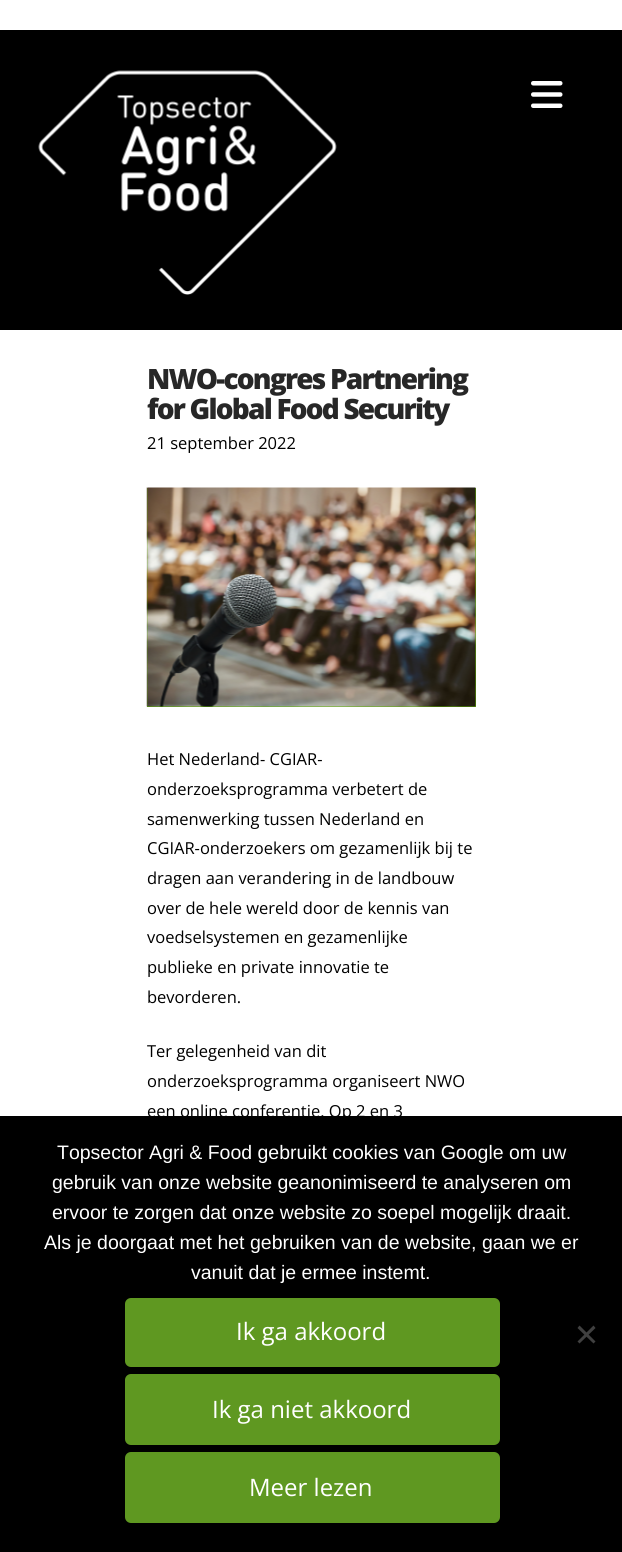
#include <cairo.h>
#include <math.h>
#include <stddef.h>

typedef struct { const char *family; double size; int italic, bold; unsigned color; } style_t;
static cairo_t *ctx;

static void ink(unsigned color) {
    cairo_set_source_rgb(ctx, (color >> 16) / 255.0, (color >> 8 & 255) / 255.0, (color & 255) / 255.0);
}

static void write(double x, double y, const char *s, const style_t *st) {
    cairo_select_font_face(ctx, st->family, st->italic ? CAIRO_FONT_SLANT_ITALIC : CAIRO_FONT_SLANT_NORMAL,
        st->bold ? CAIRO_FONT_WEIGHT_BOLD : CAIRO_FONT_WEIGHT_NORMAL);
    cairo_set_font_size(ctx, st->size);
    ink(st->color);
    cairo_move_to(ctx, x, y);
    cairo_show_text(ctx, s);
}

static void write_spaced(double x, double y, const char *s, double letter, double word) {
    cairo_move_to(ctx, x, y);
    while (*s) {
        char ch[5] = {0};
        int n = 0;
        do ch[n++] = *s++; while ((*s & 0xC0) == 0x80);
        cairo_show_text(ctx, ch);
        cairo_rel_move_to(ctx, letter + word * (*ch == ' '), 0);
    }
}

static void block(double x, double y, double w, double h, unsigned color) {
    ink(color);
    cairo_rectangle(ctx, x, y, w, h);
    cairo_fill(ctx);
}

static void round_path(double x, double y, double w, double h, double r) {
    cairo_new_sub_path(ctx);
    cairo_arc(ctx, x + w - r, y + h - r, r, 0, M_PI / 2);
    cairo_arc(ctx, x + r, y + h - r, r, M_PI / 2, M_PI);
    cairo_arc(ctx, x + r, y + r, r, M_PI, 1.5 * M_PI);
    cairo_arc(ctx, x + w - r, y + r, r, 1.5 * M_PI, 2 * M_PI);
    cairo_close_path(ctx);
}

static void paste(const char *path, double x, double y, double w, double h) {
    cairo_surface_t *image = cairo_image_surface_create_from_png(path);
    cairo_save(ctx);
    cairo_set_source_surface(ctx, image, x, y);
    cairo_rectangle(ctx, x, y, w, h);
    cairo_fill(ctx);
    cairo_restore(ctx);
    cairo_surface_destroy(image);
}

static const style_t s1 = {"Open Sans", 16.5, 0, 0, 0x000000};
static const style_t s2 = {"Liberation Sans", 19.5, 0, 0, 0xffffff};
static const style_t s3 = {"Open Sans", 24, 0, 0, 0xffffff};

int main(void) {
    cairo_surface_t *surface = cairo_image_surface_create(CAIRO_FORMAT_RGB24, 622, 1552);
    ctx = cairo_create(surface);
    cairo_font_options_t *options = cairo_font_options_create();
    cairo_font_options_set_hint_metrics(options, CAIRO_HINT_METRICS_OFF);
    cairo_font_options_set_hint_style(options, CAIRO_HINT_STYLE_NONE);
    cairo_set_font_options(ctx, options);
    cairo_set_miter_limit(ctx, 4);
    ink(0xffffff);
    cairo_paint(ctx);
    block(0, 30, 622, 300, 0x000000);
    paste("pic1.png", 38, 70, 299, 225);
    paste("pic2.png", 531, 81, 32, 27);
    cairo_select_font_face(ctx, "Open Sans ExtraBold", CAIRO_FONT_SLANT_NORMAL, CAIRO_FONT_WEIGHT_NORMAL);
    cairo_set_font_size(ctx, 28);
    ink(0x272727);
    write_spaced(147, 389, "NWO-congres Partnering", -1.8, 0);
    write_spaced(147, 419, "for Global Food Security", -1.8, 0);
    write(147, 449, "21 september 2022", &s1);
    block(147, 488, 329, 219, 0x5fb003);
    paste("pic3.png", 146, 487, 330, 220);
    write(147, 765, "Het Nederland- CGIAR-", &s1);
    write(147, 795, "onderzoeksprogramma verbetert de", &s1);
    write(147, 825, "samenwerking tussen Nederland en", &s1);
    write(147, 854, "CGIAR-onderzoekers om gezamenlijk bij te", &s1);
    write(147, 884, "dragen aan verandering in de landbouw", &s1);
    write(147, 914, "over de hele wereld door de kennis van", &s1);
    write(147, 943, "voedselsystemen en gezamenlijke", &s1);
    write(147, 973, "publieke en private innovatie te", &s1);
    write(147, 1003, "bevorderen.", &s1);
    write(147, 1057, "Ter gelegenheid van dit", &s1);
    write(147, 1087, "onderzoeksprogramma organiseert NWO", &s1);
    write(147, 1117, "een online conferentie. Op 2 en 3", &s1);
    block(0, 1116, 622, 436, 0x000000);
    write(57, 1159, "Topsector Agri & Food gebruikt cookies van Google om uw", &s2);
    write(52, 1189, "gebruik van onze website geanonimiseerd te analyseren om", &s2);
    write(52, 1219, "ervoor te zorgen dat onze website zo soepel mogelijk draait.", &s2);
    write(44, 1249, "Als je doorgaat met het gebruiken van de website, gaan we er", &s2);
    write(191, 1279, "vanuit dat je ermee instemt.", &s2);
    ink(0x5f9821);
    round_path(126, 1299, 373, 67, 5);
    cairo_fill_preserve(ctx);
    cairo_stroke(ctx);
    write(236, 1340, "Ik ga akkoord", &s3);
    ink(0x5f9821);
    round_path(126, 1375, 373, 69, 5);
    cairo_fill_preserve(ctx);
    cairo_stroke(ctx);
    write(212, 1418, "Ik ga niet akkoord", &s3);
    ink(0x5f9821);
    round_path(126, 1453, 373, 69, 5);
    cairo_fill_preserve(ctx);
    cairo_stroke(ctx);
    write(249, 1496, "Meer lezen", &s3);
    ink(0x404040);
    cairo_new_path(ctx);
    cairo_move_to(ctx, 593.5, 1325.5);
    cairo_line_to(ctx, 595.5, 1328);
    cairo_line_to(ctx, 579.5, 1343.5);
    cairo_line_to(ctx, 577.5, 1341.5);
    cairo_close_path(ctx);
    cairo_fill(ctx);
    cairo_new_path(ctx);
    cairo_move_to(ctx, 577.5, 1328);
    cairo_line_to(ctx, 579.5, 1325.5);
    cairo_line_to(ctx, 595.5, 1341.5);
    cairo_line_to(ctx, 593.5, 1343.5);
    cairo_close_path(ctx);
    cairo_fill(ctx);
    cairo_surface_write_to_png(surface, "screenshot.png");
    cairo_font_options_destroy(options);
    cairo_destroy(ctx);
    cairo_surface_destroy(surface);
    return 0;
}
